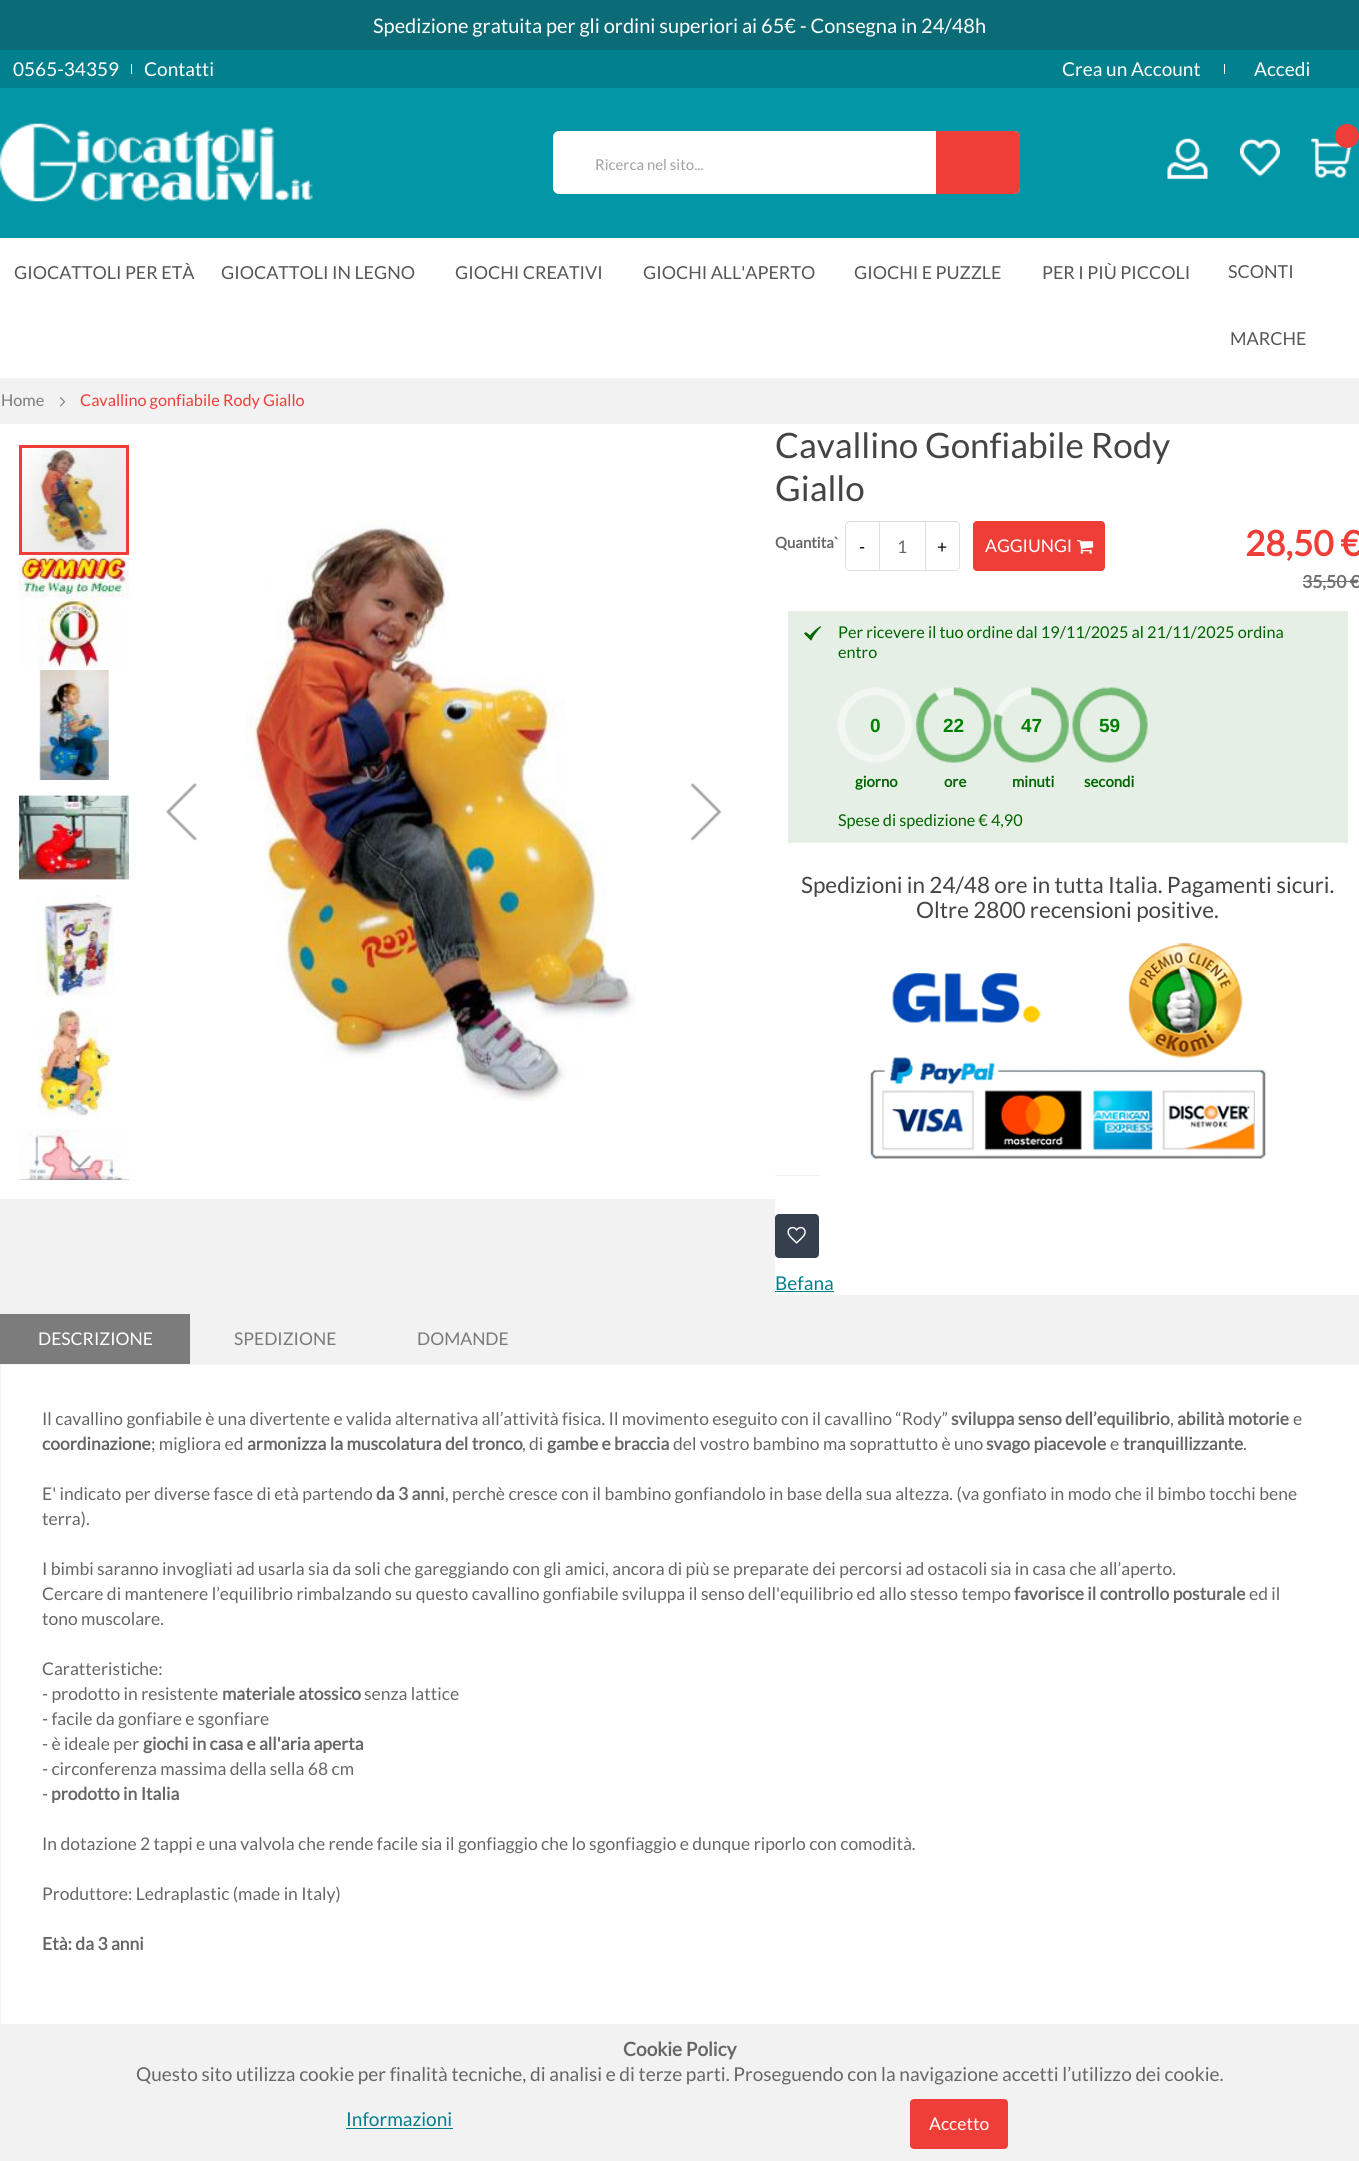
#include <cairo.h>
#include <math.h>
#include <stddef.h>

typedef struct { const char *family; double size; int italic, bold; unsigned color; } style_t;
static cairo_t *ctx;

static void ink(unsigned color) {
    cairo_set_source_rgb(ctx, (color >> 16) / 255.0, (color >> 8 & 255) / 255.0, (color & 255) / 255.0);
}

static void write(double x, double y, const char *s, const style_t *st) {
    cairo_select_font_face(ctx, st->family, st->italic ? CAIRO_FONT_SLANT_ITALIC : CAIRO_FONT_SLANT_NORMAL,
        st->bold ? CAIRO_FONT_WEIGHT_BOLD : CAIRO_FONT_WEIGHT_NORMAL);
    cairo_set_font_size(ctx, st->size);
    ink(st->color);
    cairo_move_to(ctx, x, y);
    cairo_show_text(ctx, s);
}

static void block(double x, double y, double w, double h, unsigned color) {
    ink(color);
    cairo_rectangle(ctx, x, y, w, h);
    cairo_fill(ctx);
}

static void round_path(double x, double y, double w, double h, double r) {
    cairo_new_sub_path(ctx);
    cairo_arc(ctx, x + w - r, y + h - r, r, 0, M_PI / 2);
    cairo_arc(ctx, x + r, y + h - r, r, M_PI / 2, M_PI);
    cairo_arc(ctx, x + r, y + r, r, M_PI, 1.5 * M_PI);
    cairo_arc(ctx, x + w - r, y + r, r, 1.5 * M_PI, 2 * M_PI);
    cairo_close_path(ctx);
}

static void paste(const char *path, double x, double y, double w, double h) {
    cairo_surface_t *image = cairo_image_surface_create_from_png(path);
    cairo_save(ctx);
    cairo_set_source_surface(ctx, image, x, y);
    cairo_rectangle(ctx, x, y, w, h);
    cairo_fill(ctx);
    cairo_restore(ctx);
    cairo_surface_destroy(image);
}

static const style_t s1 = {"Lato", 20, 0, 0, 0xffffff};
static const style_t s2 = {"Lato", 19.05, 0, 0, 0xffffff};
static const style_t s3 = {"Lato", 15, 0, 0, 0xa2a2a2};
static const style_t s4 = {"Lato", 17.9, 0, 0, 0x575757};
static const style_t s5 = {"Lato", 16.25, 0, 0, 0x7a7a7a};
static const style_t s6 = {"Lato", 16.25, 0, 0, 0xef3e38};
static const style_t s7 = {"Lato", 35, 0, 0, 0x454444};
static const style_t s8 = {"Lato", 15, 0, 1, 0x666666};
static const style_t s9 = {"Lato", 17.5, 0, 0, 0x000000};
static const style_t s10 = {"Lato", 17.5, 0, 0, 0x666666};
static const style_t s11 = {"Lato", 17.5, 0, 0, 0xffffff};
static const style_t s12 = {"Lato", 35, 0, 1, 0xef3e38};
static const style_t s13 = {"Lato", 17.5, 0, 1, 0x707070};
static const style_t s14 = {"Lato", 16.25, 0, 0, 0x006400};
static const style_t s15 = {"Liberation Sans", 19, 0, 1, 0x008000};
static const style_t s16 = {"Lato", 15, 0, 1, 0x006400};
static const style_t s17 = {"Lato", 22.5, 0, 0, 0x454444};
static const style_t s18 = {"Lato", 19.05, 0, 0, 0x02808e};
static const style_t s19 = {"Lato", 17.5, 0, 0, 0x7a7a7a};
static const style_t s20 = {"Lato", 17.5, 0, 1, 0x666666};
static const style_t s21 = {"Lato", 19.05, 0, 1, 0x666666};
static const style_t s22 = {"Lato", 19.05, 0, 0, 0x666666};

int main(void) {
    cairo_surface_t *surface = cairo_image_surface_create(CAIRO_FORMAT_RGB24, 1359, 2161);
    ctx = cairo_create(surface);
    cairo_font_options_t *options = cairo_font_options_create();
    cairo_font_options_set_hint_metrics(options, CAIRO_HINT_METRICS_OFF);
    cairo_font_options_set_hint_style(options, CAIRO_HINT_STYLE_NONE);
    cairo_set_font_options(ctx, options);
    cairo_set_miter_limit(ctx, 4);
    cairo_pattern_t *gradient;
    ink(0xf2f2f2);
    cairo_paint(ctx);
    block(0, 0, 1359, 50, 0x0b6c78);
    write(373, 33, "Spedizione gratuita per gli ordini superiori ai 65€ - Consegna in 24/48h", &s1);
    block(0, 88, 1359, 150, 0x0396a6);
    block(0, 50, 1359, 38, 0x02808e);
    write(13, 76, "0565-34359", &s2);
    block(131, 64, 1, 10, 0xffffff);
    write(144, 76, "Contatti", &s2);
    write(1062, 76, "Crea un Account", &s2);
    block(1224, 64, 1, 10, 0xffffff);
    write(1254, 76, "Accedi", &s2);
    paste("pic1.png", 0, 123, 313, 79);
    round_path(553, 131, 467, 63, 6);
    cairo_fill(ctx);
    write(595, 170, "Ricerca nel sito...", &s3);
    ink(0xef3e38);
    cairo_new_path(ctx);
    cairo_move_to(ctx, 936, 131);
    cairo_line_to(ctx, 1014, 131);
    cairo_curve_to(ctx, 1017.5, 131, 1020, 133.5, 1020, 137);
    cairo_line_to(ctx, 1020, 188);
    cairo_curve_to(ctx, 1020, 191.5, 1017.5, 194, 1014, 194);
    cairo_line_to(ctx, 936, 194);
    cairo_close_path(ctx);
    cairo_fill(ctx);
    paste("pic2.png", 1167, 138, 41, 41);
    paste("pic3.png", 1240, 138, 40, 39);
    paste("pic4.png", 1311, 138, 41, 40);
    cairo_arc(ctx, 1347, 136, 12, 0, 2 * M_PI);
    cairo_fill(ctx);
    block(0, 238, 1359, 140, 0xffffff);
    write(14, 279, "GIOCATTOLI PER ETÀ", &s4);
    write(221, 279, "GIOCATTOLI IN LEGNO", &s4);
    write(455, 279, "GIOCHI CREATIVI", &s4);
    write(643, 279, "GIOCHI ALL'APERTO", &s4);
    write(854, 279, "GIOCHI E PUZZLE", &s4);
    write(1042, 279, "PER I PIÙ PICCOLI", &s4);
    write(1228, 278, "SCONTI", &s4);
    write(1230, 345, "MARCHE", &s4);
    write(1, 406, "Home", &s5);
    paste("pic5.png", 59, 397, 7, 10);
    write(80, 406, "Cavallino gonfiabile Rody Giallo", &s6);
    block(0, 424, 775, 775, 0xffffff);
    paste("pic6.png", 32, 448, 81, 104);
    gradient = cairo_pattern_create_linear(21, 448, 126, 553);
    cairo_pattern_add_color_stop_rgba(gradient, 0, 1, 1, 1, 0.25);
    cairo_pattern_add_color_stop_rgba(gradient, 1, 0.251, 0.251, 0.251, 0.1);
    cairo_set_source(ctx, gradient);
    cairo_pattern_destroy(gradient);
    cairo_rectangle(ctx, 22, 448, 104, 104);
    cairo_fill(ctx);
    cairo_rectangle(ctx, 20.5, 446.5, 107, 107);
    ink(0xef3e38);
    cairo_set_line_width(ctx, 3);
    cairo_stroke(ctx);
    paste("pic7.png", 18, 557, 111, 111);
    paste("pic8.png", 39, 670, 70, 110);
    paste("pic9.png", 19, 795, 110, 85);
    paste("pic10.png", 35, 895, 79, 102);
    paste("pic11.png", 37, 1007, 75, 111);
    paste("pic12.png", 19, 1129, 110, 51);
    cairo_set_source_rgba(ctx, 0, 0, 0, 0.2);
    cairo_rectangle(ctx, 19, 1179, 110, 1);
    cairo_fill(ctx);
    cairo_set_source_rgba(ctx, 1, 1, 1, 0.3);
    cairo_rectangle(ctx, 19, 1143, 110, 37);
    cairo_fill(ctx);
    paste("pic13.png", 67, 1155, 25, 14);
    paste("pic14.png", 166, 783, 31, 58);
    paste("pic15.png", 245, 519, 391, 582);
    paste("pic16.png", 690, 783, 32, 58);
    block(775, 424, 584, 871, 0xffffff);
    write(775, 458, "Cavallino Gonfiabile Rody", &s7);
    write(775, 501, "Giallo", &s7);
    write(775, 548, "Quantita`", &s8);
    cairo_rectangle(ctx, 878.5, 521.5, 49, 49);
    ink(0xdfdfdf);
    cairo_set_line_width(ctx, 1);
    cairo_stroke(ctx);
    ink(0xffffff);
    cairo_new_path(ctx);
    cairo_move_to(ctx, 850, 521.5);
    cairo_line_to(ctx, 879.5, 521.5);
    cairo_line_to(ctx, 879.5, 570.5);
    cairo_line_to(ctx, 850, 570.5);
    cairo_curve_to(ctx, 847.5, 570.5, 845.5, 568.5, 845.5, 566);
    cairo_line_to(ctx, 845.5, 526);
    cairo_curve_to(ctx, 845.5, 523.5, 847.5, 521.5, 850, 521.5);
    cairo_close_path(ctx);
    cairo_fill_preserve(ctx);
    ink(0xdfdfdf);
    cairo_stroke(ctx);
    write(859, 553, "-", &s9);
    write(897, 553, "1", &s10);
    ink(0xffffff);
    cairo_new_path(ctx);
    cairo_move_to(ctx, 925.5, 521.5);
    cairo_line_to(ctx, 955, 521.5);
    cairo_curve_to(ctx, 957.5, 521.5, 959.5, 523.5, 959.5, 526);
    cairo_line_to(ctx, 959.5, 566);
    cairo_curve_to(ctx, 959.5, 568.5, 957.5, 570.5, 955, 570.5);
    cairo_line_to(ctx, 925.5, 570.5);
    cairo_close_path(ctx);
    cairo_fill_preserve(ctx);
    ink(0xdfdfdf);
    cairo_stroke(ctx);
    write(937, 553, "+", &s9);
    ink(0xef3e38);
    round_path(973, 521, 132, 50, 4);
    cairo_fill(ctx);
    write(985, 552, "AGGIUNGI", &s11);
    paste("pic17.png", 1076, 540, 18, 14);
    write(1245, 556, "28,50 €", &s12);
    write(1302, 588, "35,50 €", &s13);
    block(1303, 581, 56, 1, 0x707070);
    block(788, 611, 560, 232, 0xe5efe5);
    write(838, 638, "Per ricevere il tuo ordine dal 19/11/2025 al 21/11/2025 ordina", &s14);
    write(838, 658, "entro", &s14);
    paste("pic18.png", 804, 626, 17, 15);
    write(870, 732, "0", &s15);
    paste("pic19.png", 837, 687, 76, 76);
    write(855, 787, "giorno", &s16);
    write(943, 732, "22", &s15);
    paste("pic20.png", 916, 687, 76, 76);
    write(944, 787, "ore", &s16);
    write(1021, 732, "47", &s15);
    paste("pic21.png", 993, 687, 76, 76);
    write(1012, 787, "minuti", &s16);
    write(1099, 732, "59", &s15);
    paste("pic22.png", 1072, 687, 76, 76);
    write(1084, 787, "secondi", &s16);
    write(838, 826, "Spese di spedizione € 4,90", &s14);
    write(801, 893, "Spedizioni in 24/48 ore in tutta Italia. Pagamenti sicuri.", &s17);
    write(916, 918, "Oltre 2800 recensioni positive.", &s17);
    paste("pic23.png", 870, 943, 396, 216);
    block(775, 1175, 44, 1, 0xf1f1f1);
    ink(0x363f4d);
    round_path(775, 1214, 44, 44, 4);
    cairo_fill(ctx);
    paste("pic24.png", 787, 1226, 19, 18);
    write(775, 1290, "Befana", &s18);
    block(775, 1291, 59, 1, 0x02808e);
    block(0, 1314, 190, 50, 0x7c7c7c);
    write(38, 1345, "DESCRIZIONE", &s11);
    write(234, 1345, "SPEDIZIONE", &s19);
    write(417, 1345, "DOMANDE", &s19);
    block(1, 1365, 1358, 659, 0xffffff);
    write(42, 1425, "Il cavallino gonfiabile è una divertente e valida alternativa all’attività fisica. Il movimento eseguito con il cavallino “Rody”", &s10);
    write(951, 1425, "sviluppa senso dell’equilibrio", &s20);
    write(1170, 1425, ",", &s10);
    write(1177, 1425, "abilità motorie", &s20);
    write(1293, 1425, "e", &s10);
    write(42, 1450, "coordinazione", &s20);
    write(151, 1450, "; migliora ed", &s10);
    write(247, 1450, "armonizza la muscolatura del tronco", &s20);
    write(522, 1450, ", di", &s10);
    write(547, 1450, "gambe e braccia", &s20);
    write(673, 1450, "del vostro bambino ma soprattutto è uno", &s10);
    write(986, 1450, "svago piacevole", &s20);
    write(1110, 1450, "e", &s10);
    write(1123, 1450, "tranquillizzante", &s20);
    write(1243, 1450, ".", &s10);
    write(42, 1500, "E' indicato per diverse fasce di età partendo", &s10);
    write(376, 1500, "da 3 anni", &s20);
    write(445, 1500, ", perchè cresce con il bambino gonfiandolo in base della sua altezza. (va gonfiato in modo che il bimbo tocchi bene", &s10);
    write(42, 1525, "terra).", &s10);
    write(42, 1575, "I bimbi saranno invogliati ad usarla sia da soli che gareggiando con gli amici, ancora di più se preparate dei percorsi ad ostacoli sia in casa che all’aperto.", &s10);
    write(42, 1600, "Cercare di mantenere l’equilibrio rimbalzando su questo cavallino gonfiabile sviluppa il senso dell'equilibrio ed allo stesso tempo", &s10);
    write(1014, 1600, "favorisce il controllo posturale", &s20);
    write(1249, 1600, "ed il", &s10);
    write(42, 1625, "tono muscolare.", &s10);
    write(42, 1675, "Caratteristiche:", &s10);
    write(42, 1700, "- prodotto in resistente", &s10);
    write(222, 1700, "materiale atossico", &s20);
    write(364, 1700, "senza lattice", &s10);
    write(42, 1725, "- facile da gonfiare e sgonfiare", &s10);
    write(42, 1750, "- è ideale per", &s10);
    write(143, 1750, "giochi in casa e all'aria aperta", &s20);
    write(42, 1775, "- circonferenza massima della sella 68 cm", &s10);
    write(42, 1800, "-", &s10);
    write(51, 1800, "prodotto in Italia", &s20);
    write(42, 1850, "In dotazione 2 tappi e una valvola che rende facile sia il gonfiaggio che lo sgonfiaggio e dunque riporlo con comodità.", &s10);
    write(42, 1900, "Produttore: Ledraplastic (made in Italy)", &s10);
    write(42, 1950, "Età: da 3 anni", &s20);
    write(623, 2056, "Cookie Policy", &s21);
    write(136, 2081, "Questo sito utilizza cookie per finalità tecniche, di analisi e di terze parti. Proseguendo con la navigazione accetti l’utilizzo dei cookie.", &s22);
    write(346, 2126, "Informazioni", &s18);
    block(346, 2128, 107, 1, 0x02808e);
    ink(0xef3e38);
    round_path(910, 2099, 98, 50, 4);
    cairo_fill(ctx);
    write(929, 2130, "Accetto", &s11);
    cairo_surface_write_to_png(surface, "screenshot.png");
    cairo_font_options_destroy(options);
    cairo_destroy(ctx);
    cairo_surface_destroy(surface);
    return 0;
}
